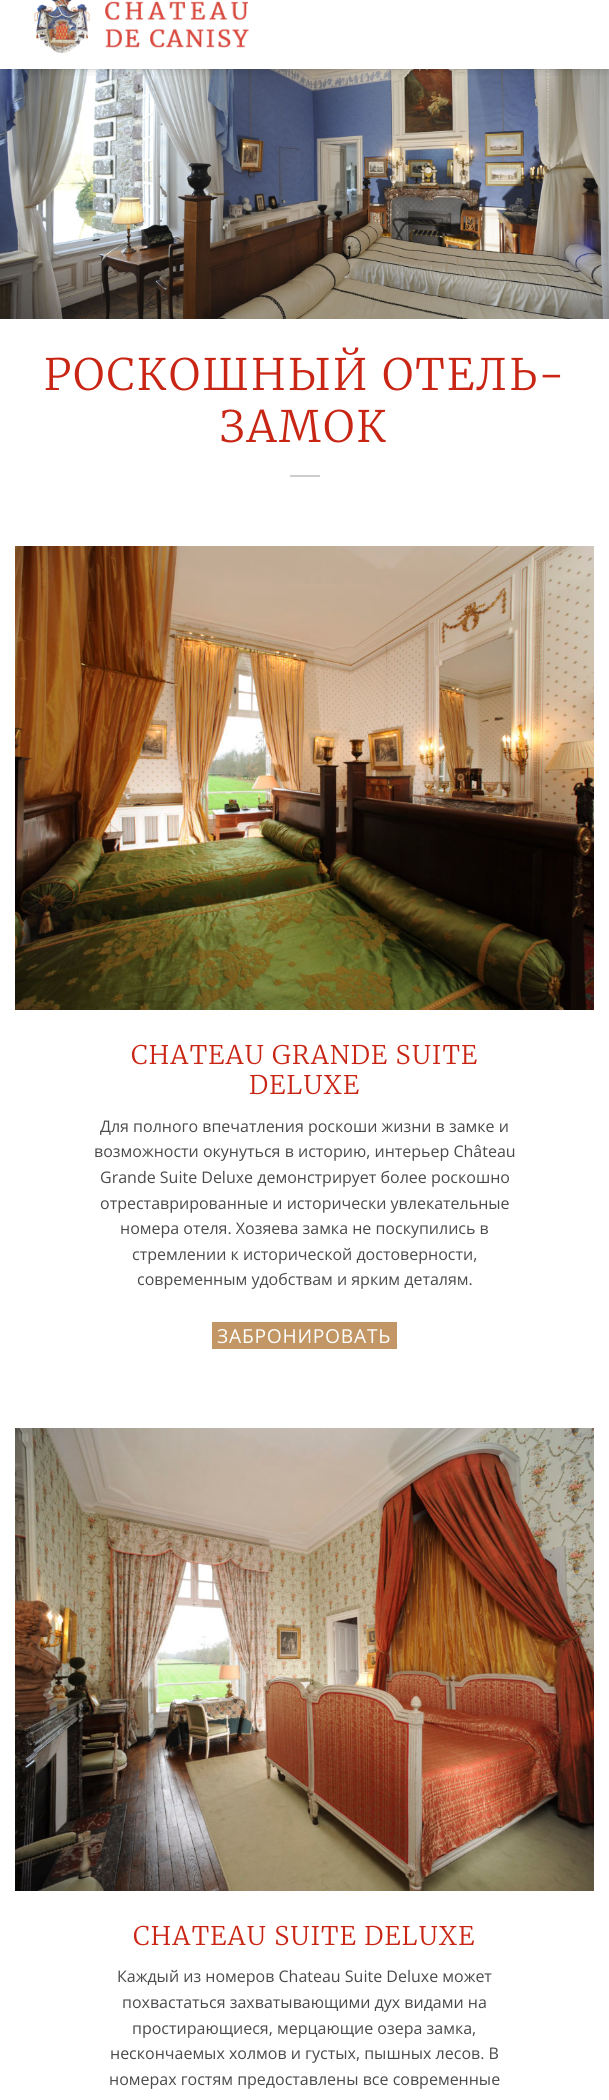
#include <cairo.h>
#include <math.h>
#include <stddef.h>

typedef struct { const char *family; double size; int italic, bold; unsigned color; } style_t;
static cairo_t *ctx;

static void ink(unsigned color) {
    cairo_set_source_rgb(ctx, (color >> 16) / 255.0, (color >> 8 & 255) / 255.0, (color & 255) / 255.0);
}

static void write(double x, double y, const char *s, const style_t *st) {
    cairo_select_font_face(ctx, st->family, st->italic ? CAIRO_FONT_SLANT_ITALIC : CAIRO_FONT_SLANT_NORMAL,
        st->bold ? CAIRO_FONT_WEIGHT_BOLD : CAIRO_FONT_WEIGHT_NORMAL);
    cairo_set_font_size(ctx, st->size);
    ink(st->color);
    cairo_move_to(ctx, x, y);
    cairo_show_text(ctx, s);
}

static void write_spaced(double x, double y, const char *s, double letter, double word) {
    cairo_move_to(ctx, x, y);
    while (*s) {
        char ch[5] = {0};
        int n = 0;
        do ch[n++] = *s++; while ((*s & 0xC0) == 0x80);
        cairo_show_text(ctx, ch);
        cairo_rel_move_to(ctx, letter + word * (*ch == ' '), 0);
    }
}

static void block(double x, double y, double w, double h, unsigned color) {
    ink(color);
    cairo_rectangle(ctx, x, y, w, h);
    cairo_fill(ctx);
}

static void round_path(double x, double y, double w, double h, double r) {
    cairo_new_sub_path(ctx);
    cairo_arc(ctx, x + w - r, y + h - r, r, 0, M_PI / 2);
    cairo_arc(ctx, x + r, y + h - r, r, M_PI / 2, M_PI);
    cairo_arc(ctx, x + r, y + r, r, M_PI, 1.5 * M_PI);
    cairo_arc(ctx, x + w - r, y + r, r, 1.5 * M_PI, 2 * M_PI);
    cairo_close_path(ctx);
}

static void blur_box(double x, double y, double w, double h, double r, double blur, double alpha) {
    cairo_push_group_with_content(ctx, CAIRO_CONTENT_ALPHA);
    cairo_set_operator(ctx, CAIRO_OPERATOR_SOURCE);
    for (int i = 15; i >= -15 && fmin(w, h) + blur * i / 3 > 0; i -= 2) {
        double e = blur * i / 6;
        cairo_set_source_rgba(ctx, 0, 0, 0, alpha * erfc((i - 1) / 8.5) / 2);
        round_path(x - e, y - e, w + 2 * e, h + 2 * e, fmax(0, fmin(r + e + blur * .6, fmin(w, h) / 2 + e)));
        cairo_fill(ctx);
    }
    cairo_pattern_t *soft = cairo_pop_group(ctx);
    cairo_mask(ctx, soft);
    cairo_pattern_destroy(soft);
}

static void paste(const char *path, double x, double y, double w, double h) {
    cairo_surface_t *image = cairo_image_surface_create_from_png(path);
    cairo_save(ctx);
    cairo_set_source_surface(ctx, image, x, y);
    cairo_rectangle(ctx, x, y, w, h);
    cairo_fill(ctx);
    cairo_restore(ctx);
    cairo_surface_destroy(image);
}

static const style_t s1 = {"Open Sans", 16, 0, 0, 0x4a4a4a};

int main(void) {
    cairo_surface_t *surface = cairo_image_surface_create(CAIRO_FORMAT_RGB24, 609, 2100);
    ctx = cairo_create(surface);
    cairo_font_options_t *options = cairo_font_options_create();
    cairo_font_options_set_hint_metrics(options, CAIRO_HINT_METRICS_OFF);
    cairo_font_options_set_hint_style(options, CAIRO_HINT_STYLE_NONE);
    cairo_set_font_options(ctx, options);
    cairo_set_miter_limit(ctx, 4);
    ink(0xffffff);
    cairo_paint(ctx);
    paste("pic2.png", 0, 69, 609, 250);
    cairo_save(ctx);
    cairo_rectangle(ctx, 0, 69, 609, 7);
    cairo_clip(ctx);
    ink(0x000000);
    blur_box(1, -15, 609, 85, 0, 5, 0.15);
    cairo_restore(ctx);
    paste("pic1.png", 33, 0, 216, 54);
    cairo_set_source_rgba(ctx, 0.29, 0.29, 0.29, 0.1);
    cairo_rectangle(ctx, 15, 69, 579, 1);
    cairo_fill(ctx);
    cairo_select_font_face(ctx, "Merriweather Light", CAIRO_FONT_SLANT_NORMAL, CAIRO_FONT_WEIGHT_NORMAL);
    cairo_set_font_size(ctx, 43.25);
    ink(0xc92514);
    write_spaced(44, 390, "РОСКОШНЫЙ ОТЕЛЬ-", 2.2, 0);
    write_spaced(220, 442, "ЗАМОК", 2.2, 0);
    block(290, 475, 30, 2, 0xcdcdcd);
    paste("pic3.png", 15, 546, 579, 464);
    cairo_set_font_size(ctx, 25.6);
    ink(0xc92514);
    write_spaced(131, 1064, "CHATEAU GRANDE SUITE", 1.25, 0);
    write_spaced(249, 1094, "DELUXE", 1.25, 0);
    write(100, 1132, "Для полного впечатления роскоши жизни в замке и", &s1);
    write(94, 1157, "возможности окунуться в историю, интерьер Château", &s1);
    write(100, 1183, "Grande Suite Deluxe демонстрирует более роскошно", &s1);
    write(100, 1209, "отреставрированные и исторически увлекательные", &s1);
    write(120, 1234, "номера отеля. Хозяева замка не поскупились в", &s1);
    write(132, 1260, "стремлении к исторической достоверности,", &s1);
    write(137, 1285, "современным удобствам и ярким деталям.", &s1);
    block(212, 1322, 185, 27, 0xc29765);
    cairo_set_font_size(ctx, 19.25);
    ink(0xffffff);
    write_spaced(217, 1343, "ЗАБРОНИРОВАТЬ", 0.75, 0);
    paste("pic4.png", 15, 1428, 579, 463);
    cairo_select_font_face(ctx, "Merriweather Light", CAIRO_FONT_SLANT_NORMAL, CAIRO_FONT_WEIGHT_NORMAL);
    cairo_set_font_size(ctx, 25.6);
    ink(0xc92514);
    write_spaced(133, 1945, "CHATEAU SUITE DELUXE", 1.25, 0);
    write(117, 1982, "Каждый из номеров Chateau Suite Deluxe может", &s1);
    write(122, 2008, "похвастаться захватывающими дух видами на", &s1);
    write(132, 2034, "простирающиеся, мерцающие озера замка,", &s1);
    write(110, 2059, "нескончаемых холмов и густых, пышных лесов. В", &s1);
    write(109, 2085, "номерах гостям предоставлены все современные", &s1);
    cairo_surface_write_to_png(surface, "screenshot.png");
    cairo_font_options_destroy(options);
    cairo_destroy(ctx);
    cairo_surface_destroy(surface);
    return 0;
}
